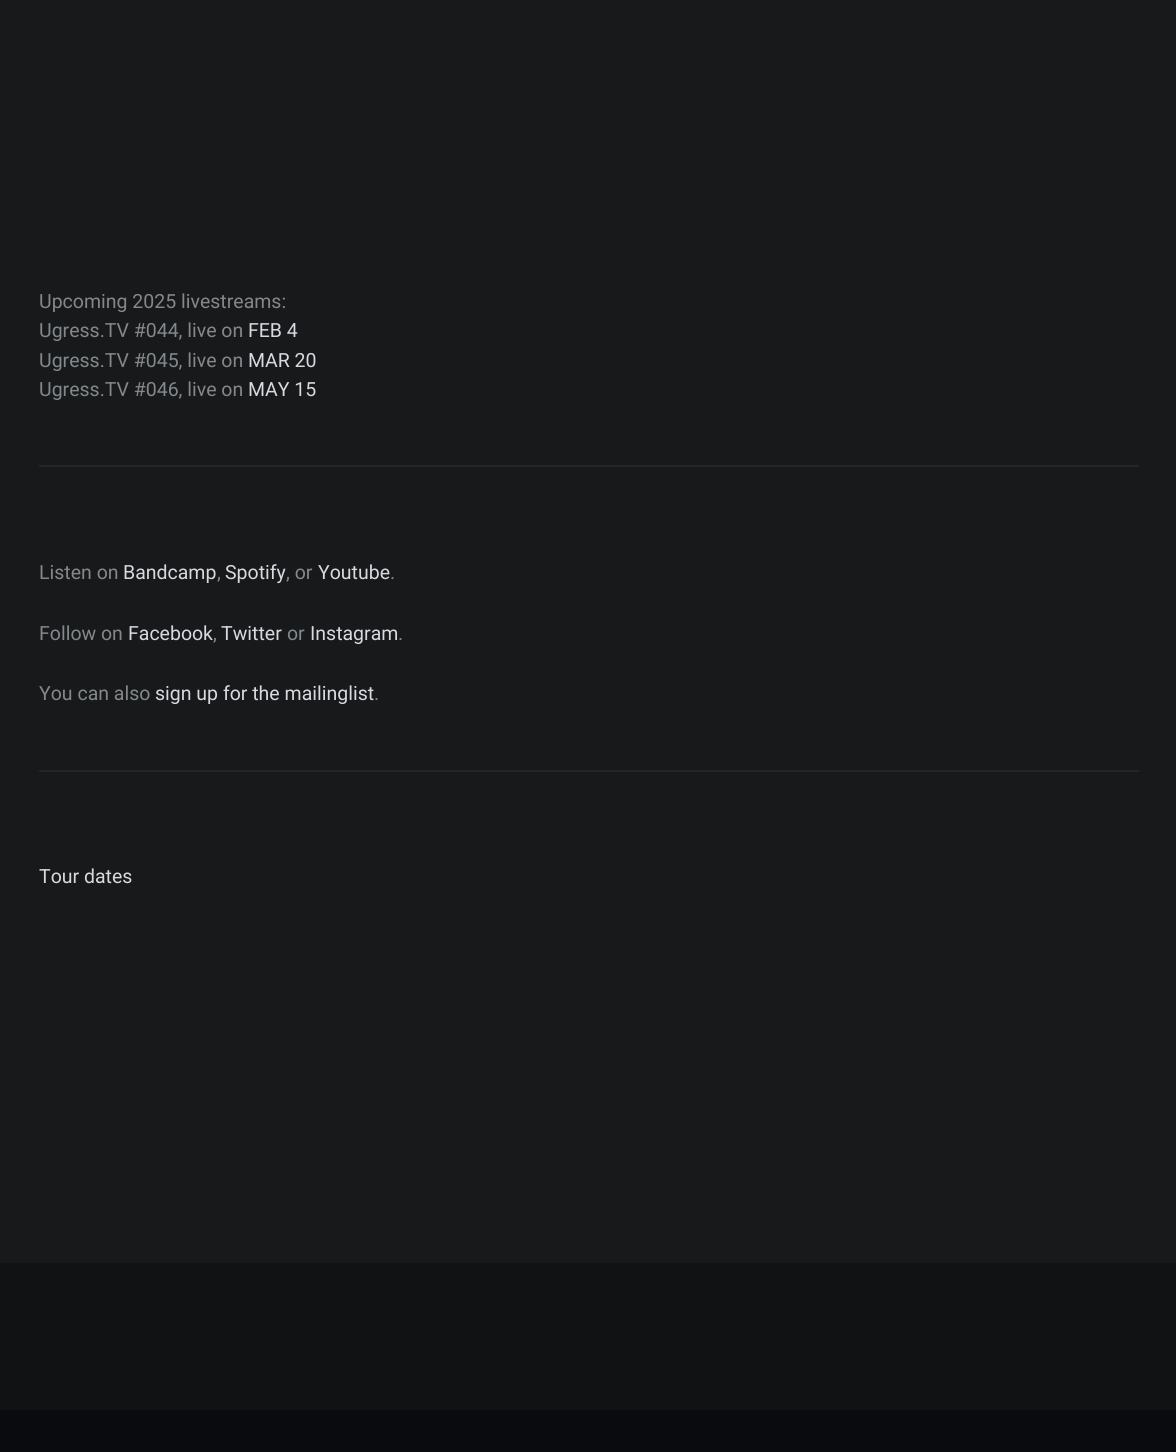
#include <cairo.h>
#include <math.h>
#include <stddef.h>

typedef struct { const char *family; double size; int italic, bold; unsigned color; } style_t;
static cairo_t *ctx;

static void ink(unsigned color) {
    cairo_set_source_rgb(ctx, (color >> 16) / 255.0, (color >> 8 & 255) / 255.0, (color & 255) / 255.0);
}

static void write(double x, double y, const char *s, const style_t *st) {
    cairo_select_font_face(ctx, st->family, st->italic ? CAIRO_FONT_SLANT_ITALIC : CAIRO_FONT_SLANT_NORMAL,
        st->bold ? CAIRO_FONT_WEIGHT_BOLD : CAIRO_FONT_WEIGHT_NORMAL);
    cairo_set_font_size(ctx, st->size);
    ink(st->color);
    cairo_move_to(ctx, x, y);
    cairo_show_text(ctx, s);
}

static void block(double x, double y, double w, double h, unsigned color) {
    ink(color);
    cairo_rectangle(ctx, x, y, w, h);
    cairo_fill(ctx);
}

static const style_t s1 = {"Roboto", 19.5, 0, 0, 0x82888b};
static const style_t s2 = {"Roboto", 19.5, 0, 0, 0xd8dae0};

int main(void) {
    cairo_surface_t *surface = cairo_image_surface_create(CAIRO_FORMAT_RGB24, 1176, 1452);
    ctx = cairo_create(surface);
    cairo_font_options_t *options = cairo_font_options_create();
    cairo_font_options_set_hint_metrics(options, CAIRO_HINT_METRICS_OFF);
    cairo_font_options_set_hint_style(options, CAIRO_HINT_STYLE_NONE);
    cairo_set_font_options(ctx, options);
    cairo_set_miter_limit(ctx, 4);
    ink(0x18191b);
    cairo_paint(ctx);
    write(39, 308, "Upcoming 2025 livestreams:", &s1);
    write(39, 337, "Ugress.TV #044, live on", &s1);
    write(248, 337, "FEB 4", &s2);
    write(39, 367, "Ugress.TV #045, live on", &s1);
    write(248, 367, "MAR 20", &s2);
    write(39, 396, "Ugress.TV #046, live on", &s1);
    write(248, 396, "MAY 15", &s2);
    block(39, 465, 1100, 2, 0x242629);
    write(39, 579, "Listen on", &s1);
    write(123, 579, "Bandcamp", &s2);
    write(217, 579, ",", &s1);
    write(225, 579, "Spotify", &s2);
    write(286, 579, ", or", &s1);
    write(318, 579, "Youtube", &s2);
    write(390, 579, ".", &s1);
    write(39, 640, "Follow on", &s1);
    write(128, 640, "Facebook", &s2);
    write(213, 640, ",", &s1);
    write(221, 640, "Twitter", &s2);
    write(287, 640, "or", &s1);
    write(310, 640, "Instagram", &s2);
    write(398, 640, ".", &s1);
    write(39, 700, "You can also", &s1);
    write(155, 700, "sign up for the mailinglist", &s2);
    write(374, 700, ".", &s1);
    block(39, 770, 1100, 2, 0x242629);
    write(39, 883, "Tour dates", &s2);
    block(0, 1263, 1176, 147, 0x111214);
    block(0, 1410, 1176, 42, 0x0a0b0e);
    cairo_surface_write_to_png(surface, "screenshot.png");
    cairo_font_options_destroy(options);
    cairo_destroy(ctx);
    cairo_surface_destroy(surface);
    return 0;
}
